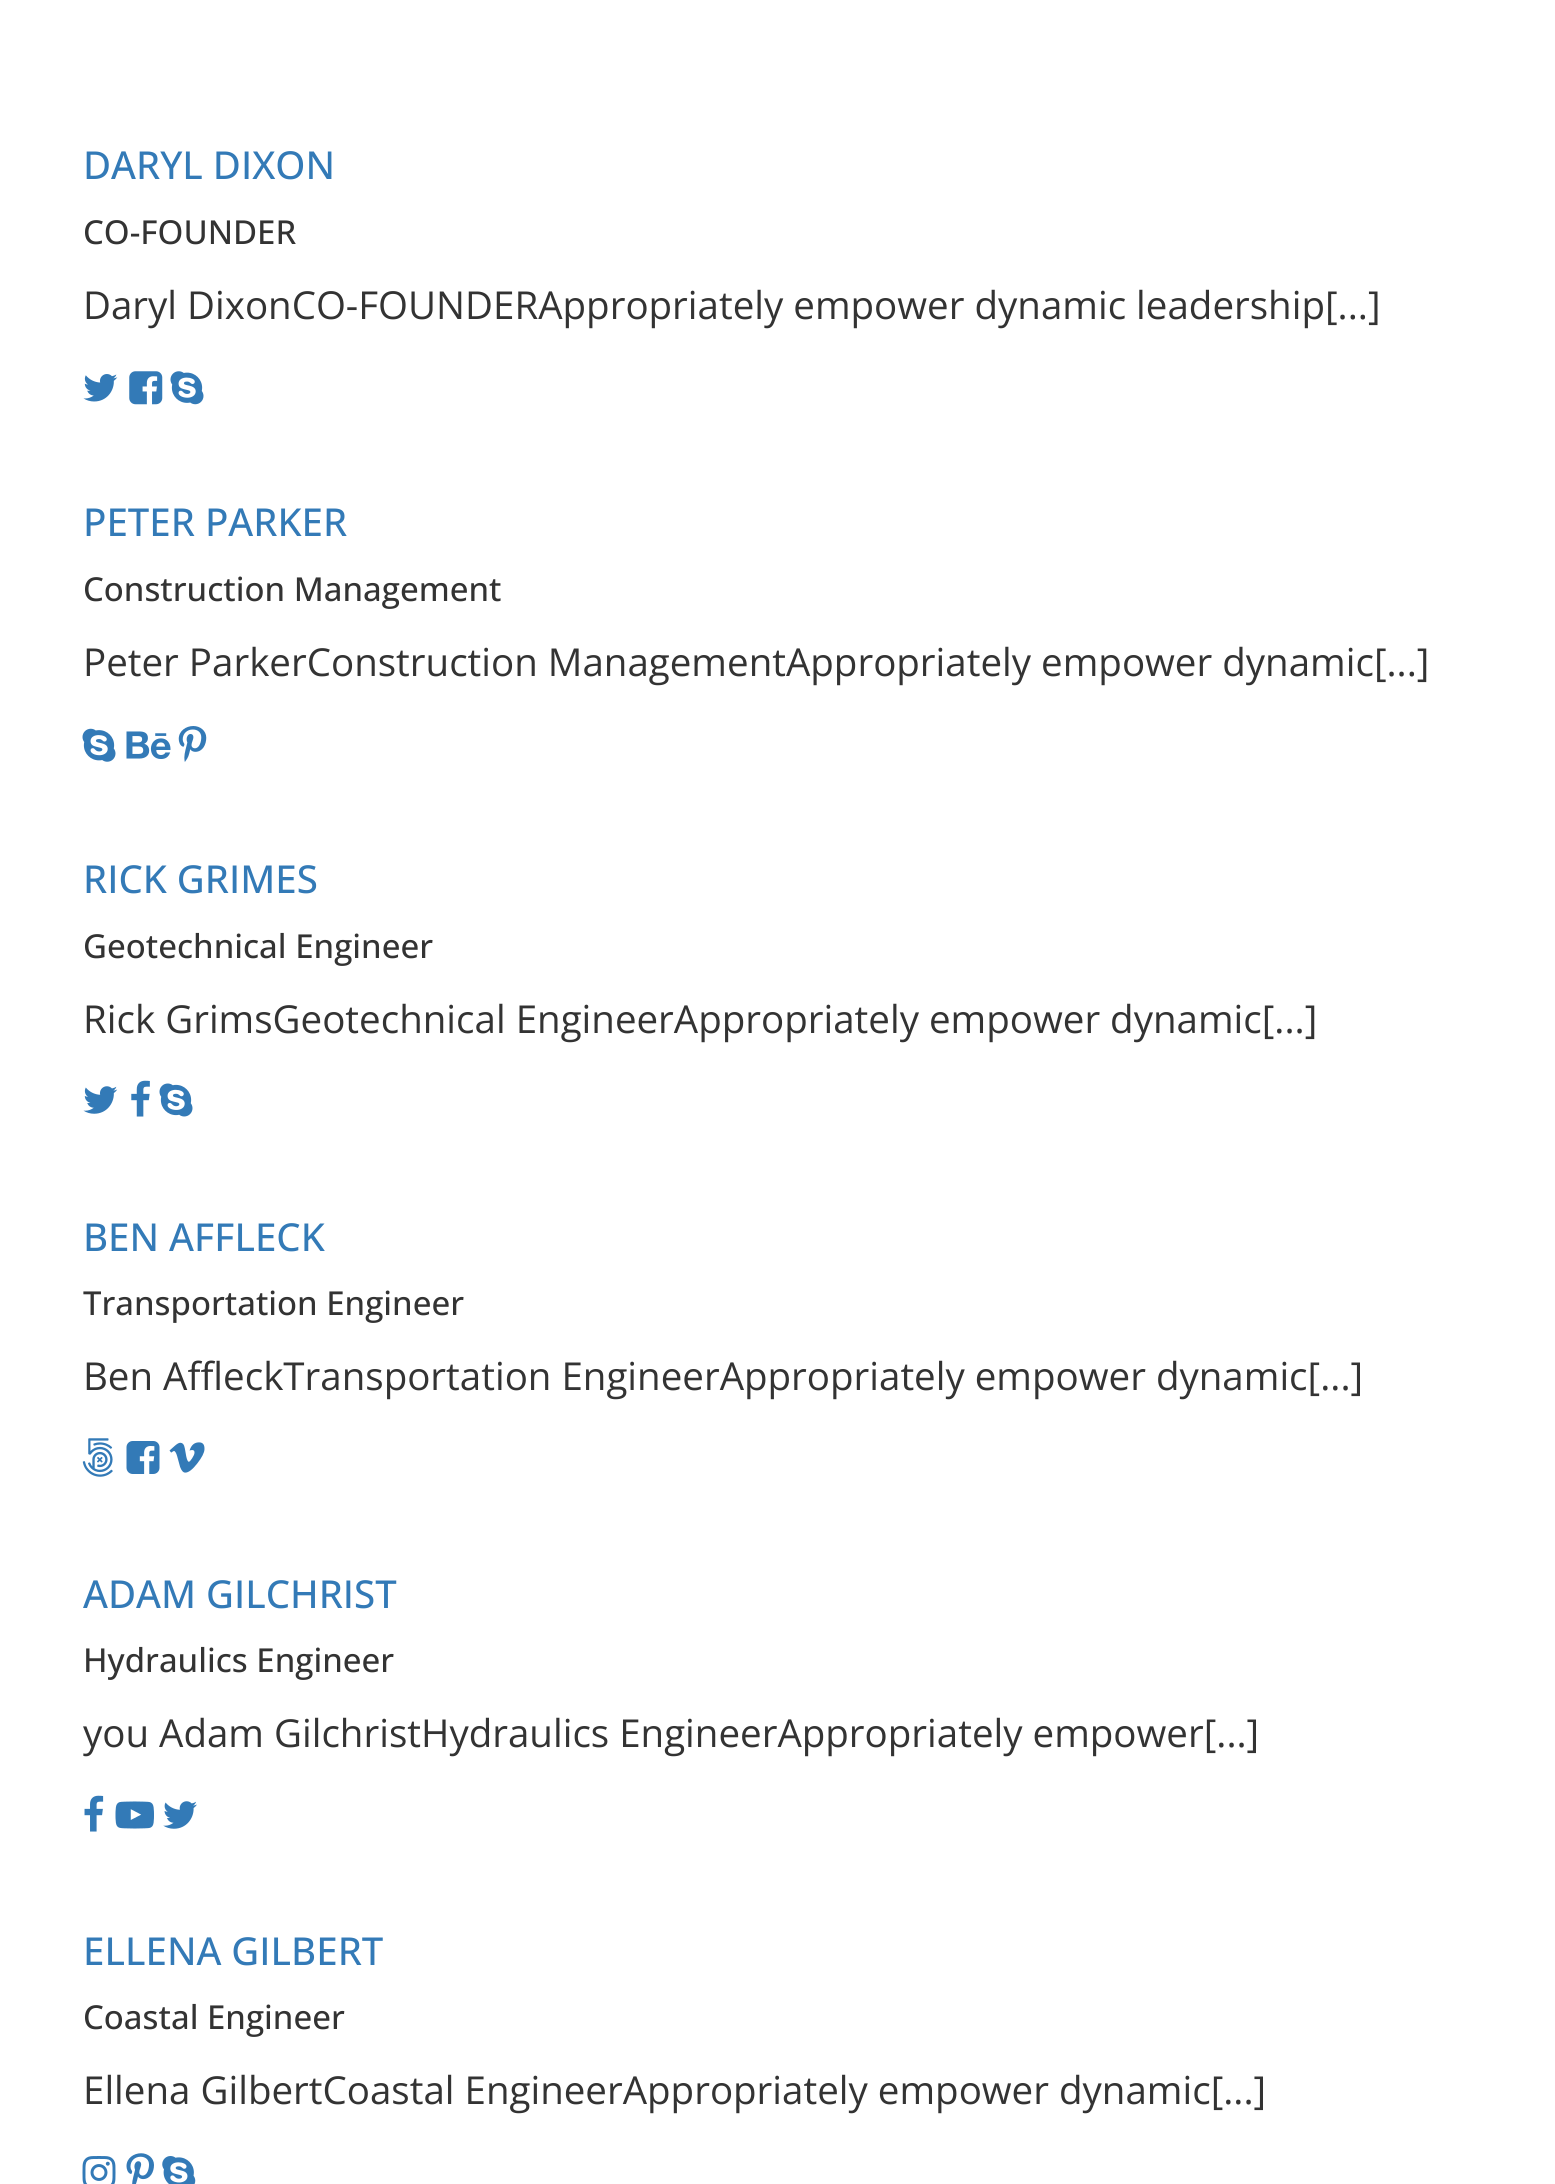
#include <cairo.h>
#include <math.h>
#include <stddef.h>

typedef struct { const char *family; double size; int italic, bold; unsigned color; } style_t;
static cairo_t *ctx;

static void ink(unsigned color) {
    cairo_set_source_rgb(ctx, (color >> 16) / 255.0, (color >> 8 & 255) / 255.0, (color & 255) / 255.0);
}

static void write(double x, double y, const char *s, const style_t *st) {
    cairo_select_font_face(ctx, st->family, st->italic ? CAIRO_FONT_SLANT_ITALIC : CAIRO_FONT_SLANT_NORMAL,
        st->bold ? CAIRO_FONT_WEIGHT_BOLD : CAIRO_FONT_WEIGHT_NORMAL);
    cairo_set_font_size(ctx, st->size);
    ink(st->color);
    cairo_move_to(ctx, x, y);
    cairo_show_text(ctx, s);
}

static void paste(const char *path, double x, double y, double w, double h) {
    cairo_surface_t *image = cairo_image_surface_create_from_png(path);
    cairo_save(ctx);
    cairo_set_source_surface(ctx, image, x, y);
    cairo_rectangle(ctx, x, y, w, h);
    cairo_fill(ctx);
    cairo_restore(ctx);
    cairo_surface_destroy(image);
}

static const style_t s1 = {"Open Sans Medium", 38.5, 0, 0, 0x337ab7};
static const style_t s2 = {"Open Sans Medium", 33, 0, 0, 0x333333};
static const style_t s3 = {"Open Sans", 38.5, 0, 0, 0x333333};

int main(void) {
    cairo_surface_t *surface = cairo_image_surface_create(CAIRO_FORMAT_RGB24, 1555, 2184);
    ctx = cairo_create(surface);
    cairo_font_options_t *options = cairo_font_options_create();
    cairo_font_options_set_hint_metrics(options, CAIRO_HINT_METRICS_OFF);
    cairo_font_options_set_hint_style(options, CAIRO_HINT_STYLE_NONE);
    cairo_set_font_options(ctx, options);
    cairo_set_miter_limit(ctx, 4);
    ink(0xffffff);
    cairo_paint(ctx);
    write(83, 179, "DARYL DIXON", &s1);
    write(83, 244, "CO-FOUNDER", &s2);
    write(83, 319, "Daryl DixonCO-FOUNDERAppropriately empower dynamic leadership[...]", &s3);
    paste("pic1.png", 83, 374, 35, 28);
    paste("pic2.png", 129, 371, 34, 34);
    paste("pic3.png", 170, 371, 34, 34);
    write(83, 536, "PETER PARKER", &s1);
    write(83, 601, "Construction Management", &s2);
    write(83, 676, "Peter ParkerConstruction ManagementAppropriately empower dynamic[...]", &s3);
    paste("pic4.png", 82, 728, 34, 34);
    paste("pic5.png", 126, 731, 45, 28);
    paste("pic6.png", 178, 726, 29, 36);
    write(83, 893, "RICK GRIMES", &s1);
    write(83, 958, "Geotechnical Engineer", &s2);
    write(83, 1033, "Rick GrimsGeotechnical EngineerAppropriately empower dynamic[...]", &s3);
    paste("pic7.png", 83, 1086, 35, 28);
    paste("pic8.png", 131, 1080, 19, 37);
    paste("pic9.png", 159, 1083, 34, 34);
    write(83, 1251, "BEN AFFLECK", &s1);
    write(83, 1315, "Transportation Engineer", &s2);
    write(83, 1390, "Ben AffleckTransportation EngineerAppropriately empower dynamic[...]", &s3);
    paste("pic10.png", 82, 1438, 31, 39);
    paste("pic11.png", 126, 1441, 34, 33);
    paste("pic12.png", 169, 1442, 36, 31);
    write(83, 1608, "ADAM GILCHRIST", &s1);
    write(83, 1672, "Hydraulics Engineer", &s2);
    write(83, 1747, "you Adam GilchristHydraulics EngineerAppropriately empower[...]", &s3);
    paste("pic13.png", 84, 1795, 20, 37);
    paste("pic14.png", 115, 1801, 39, 28);
    paste("pic15.png", 163, 1801, 34, 28);
    write(83, 1965, "ELLENA GILBERT", &s1);
    write(83, 2029, "Coastal Engineer", &s2);
    write(83, 2104, "Ellena GilbertCoastal EngineerAppropriately empower dynamic[...]", &s3);
    paste("pic16.png", 82, 2156, 34, 28);
    paste("pic17.png", 126, 2153, 28, 31);
    paste("pic18.png", 162, 2156, 34, 28);
    cairo_surface_write_to_png(surface, "screenshot.png");
    cairo_font_options_destroy(options);
    cairo_destroy(ctx);
    cairo_surface_destroy(surface);
    return 0;
}
